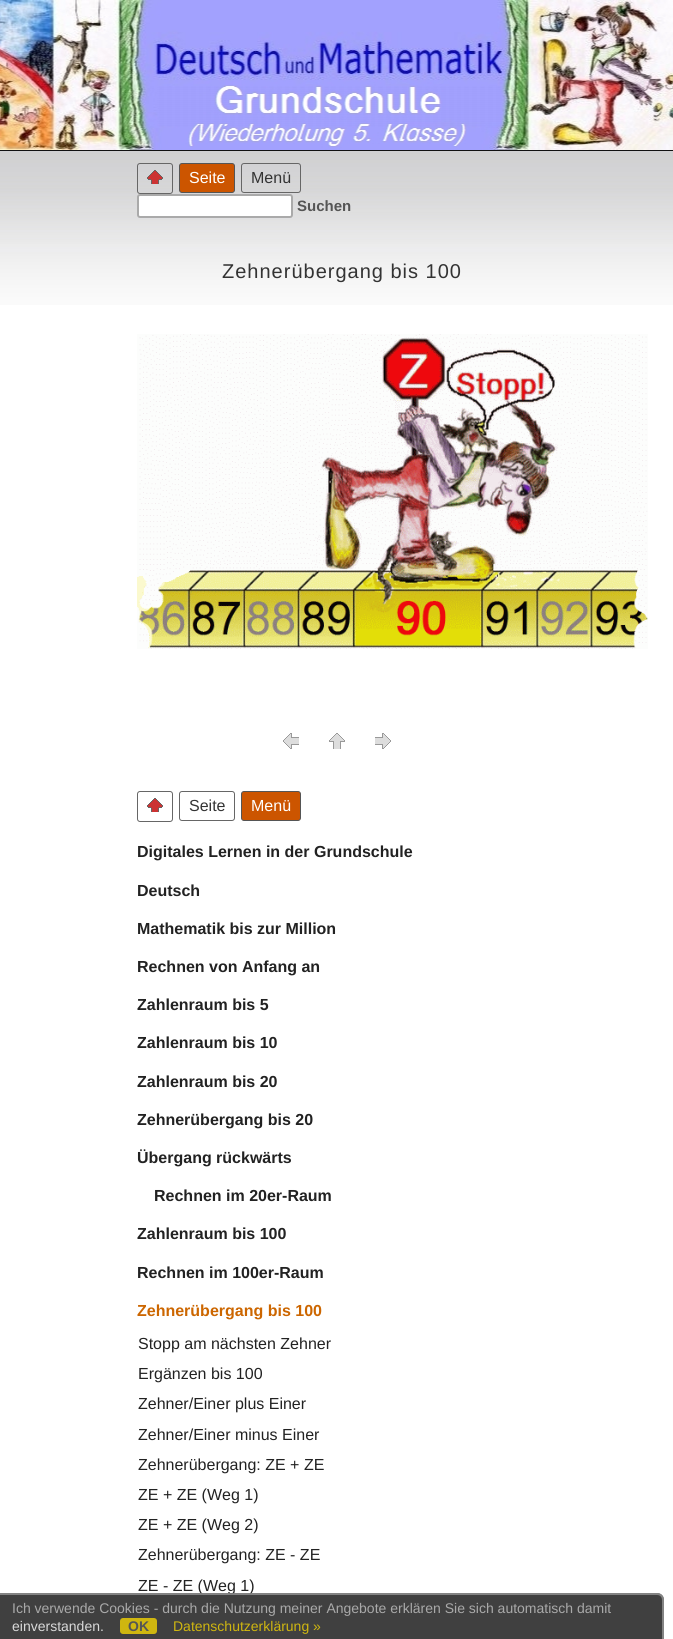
#include <cairo.h>
#include <math.h>
#include <stddef.h>

typedef struct { const char *family; double size; int italic, bold; unsigned color; } style_t;
static cairo_t *ctx;

static void ink(unsigned color) {
    cairo_set_source_rgb(ctx, (color >> 16) / 255.0, (color >> 8 & 255) / 255.0, (color & 255) / 255.0);
}

static void write(double x, double y, const char *s, const style_t *st) {
    cairo_select_font_face(ctx, st->family, st->italic ? CAIRO_FONT_SLANT_ITALIC : CAIRO_FONT_SLANT_NORMAL,
        st->bold ? CAIRO_FONT_WEIGHT_BOLD : CAIRO_FONT_WEIGHT_NORMAL);
    cairo_set_font_size(ctx, st->size);
    ink(st->color);
    cairo_move_to(ctx, x, y);
    cairo_show_text(ctx, s);
}

static void write_spaced(double x, double y, const char *s, double letter, double word) {
    cairo_move_to(ctx, x, y);
    while (*s) {
        char ch[5] = {0};
        int n = 0;
        do ch[n++] = *s++; while ((*s & 0xC0) == 0x80);
        cairo_show_text(ctx, ch);
        cairo_rel_move_to(ctx, letter + word * (*ch == ' '), 0);
    }
}

static void block(double x, double y, double w, double h, unsigned color) {
    ink(color);
    cairo_rectangle(ctx, x, y, w, h);
    cairo_fill(ctx);
}

static void round_path(double x, double y, double w, double h, double r) {
    cairo_new_sub_path(ctx);
    cairo_arc(ctx, x + w - r, y + h - r, r, 0, M_PI / 2);
    cairo_arc(ctx, x + r, y + h - r, r, M_PI / 2, M_PI);
    cairo_arc(ctx, x + r, y + r, r, M_PI, 1.5 * M_PI);
    cairo_arc(ctx, x + w - r, y + r, r, 1.5 * M_PI, 2 * M_PI);
    cairo_close_path(ctx);
}

static void paste(const char *path, double x, double y, double w, double h) {
    cairo_surface_t *image = cairo_image_surface_create_from_png(path);
    cairo_save(ctx);
    cairo_set_source_surface(ctx, image, x, y);
    cairo_rectangle(ctx, x, y, w, h);
    cairo_fill(ctx);
    cairo_restore(ctx);
    cairo_surface_destroy(image);
}

static const style_t s1 = {"Liberation Sans", 16, 0, 0, 0xffffff};
static const style_t s2 = {"Liberation Sans", 16, 0, 0, 0x333333};
static const style_t s3 = {"Liberation Sans", 15, 0, 1, 0x555555};
static const style_t s4 = {"Liberation Sans", 16, 0, 1, 0x222222};
static const style_t s5 = {"Liberation Sans", 16, 0, 1, 0xcc6600};
static const style_t s6 = {"Liberation Sans", 16, 0, 0, 0x222222};
static const style_t s7 = {"Liberation Sans", 14, 0, 0, 0xa9a9a9};
static const style_t s8 = {"Liberation Sans", 14, 0, 0, 0xd9d9d9};
static const style_t s9 = {"Liberation Sans", 14, 0, 1, 0x555555};
static const style_t s10 = {"Liberation Sans", 14, 0, 0, 0xcfb610};

int main(void) {
    cairo_surface_t *surface = cairo_image_surface_create(CAIRO_FORMAT_RGB24, 673, 1639);
    ctx = cairo_create(surface);
    cairo_font_options_t *options = cairo_font_options_create();
    cairo_font_options_set_hint_metrics(options, CAIRO_HINT_METRICS_OFF);
    cairo_font_options_set_hint_style(options, CAIRO_HINT_STYLE_NONE);
    cairo_set_font_options(ctx, options);
    cairo_set_miter_limit(ctx, 4);
    ink(0xffffff);
    cairo_paint(ctx);
    block(0, 150, 673, 1, 0x111111);
    paste("pic1.png", 0, 0, 673, 150);
    paste("pic2.png", 0, 151, 673, 154);
    round_path(137.5, 163.5, 35, 30, 2.5);
    ink(0x666666);
    cairo_set_line_width(ctx, 1);
    cairo_stroke(ctx);
    paste("pic3.png", 147, 170, 16, 14);
    ink(0xcc5500);
    round_path(179.5, 163.5, 55, 29, 2.5);
    cairo_fill_preserve(ctx);
    ink(0x555555);
    cairo_stroke(ctx);
    write(189, 183, "Seite", &s1);
    round_path(241.5, 163.5, 59, 29, 2.5);
    ink(0x666666);
    cairo_stroke(ctx);
    write(251, 183, "Menü", &s2);
    ink(0xffffff);
    round_path(138, 195, 154, 22, 2);
    cairo_fill_preserve(ctx);
    ink(0xaaaaaa);
    cairo_set_line_width(ctx, 2);
    cairo_stroke(ctx);
    write(297, 211, "Suchen", &s3);
    cairo_select_font_face(ctx, "Liberation Sans", CAIRO_FONT_SLANT_NORMAL, CAIRO_FONT_WEIGHT_NORMAL);
    cairo_set_font_size(ctx, 20);
    ink(0x333333);
    write_spaced(222, 278, "Zehnerübergang bis 100", 1, 0);
    paste("pic4.png", 137, 334, 511, 315);
    paste("pic5.png", 283, 733, 16, 16);
    paste("pic6.png", 329, 733, 16, 16);
    paste("pic7.png", 375, 733, 16, 16);
    round_path(137.5, 791.5, 35, 30, 2.5);
    ink(0x666666);
    cairo_set_line_width(ctx, 1);
    cairo_stroke(ctx);
    paste("pic8.png", 147, 798, 16, 14);
    round_path(179.5, 791.5, 55, 29, 2.5);
    cairo_stroke(ctx);
    write(189, 811, "Seite", &s2);
    ink(0xcc5500);
    round_path(241.5, 791.5, 59, 29, 2.5);
    cairo_fill_preserve(ctx);
    ink(0x555555);
    cairo_stroke(ctx);
    write(251, 811, "Menü", &s1);
    write(137, 857, "Digitales Lernen in der Grundschule", &s4);
    write(137, 896, "Deutsch", &s4);
    write(137, 934, "Mathematik bis zur Million", &s4);
    write(137, 972, "Rechnen von Anfang an", &s4);
    write(137, 1010, "Zahlenraum bis 5", &s4);
    write(137, 1048, "Zahlenraum bis 10", &s4);
    write(137, 1087, "Zahlenraum bis 20", &s4);
    write(137, 1125, "Zehnerübergang bis 20", &s4);
    write(137, 1163, "Übergang rückwärts", &s4);
    write(154, 1201, "Rechnen im 20er-Raum", &s4);
    write(137, 1239, "Zahlenraum bis 100", &s4);
    write(137, 1278, "Rechnen im 100er-Raum", &s4);
    write(137, 1316, "Zehnerübergang bis 100", &s5);
    write(138, 1349, "Stopp am nächsten Zehner", &s6);
    write(138, 1379, "Ergänzen bis 100", &s6);
    write(138, 1409, "Zehner/Einer plus Einer", &s6);
    write(138, 1440, "Zehner/Einer minus Einer", &s6);
    write(138, 1470, "Zehnerübergang: ZE + ZE", &s6);
    write(138, 1500, "ZE + ZE (Weg 1)", &s6);
    write(138, 1530, "ZE + ZE (Weg 2)", &s6);
    write(138, 1560, "Zehnerübergang: ZE - ZE", &s6);
    write(138, 1591, "ZE - ZE (Weg 1)", &s6);
    cairo_set_source_rgba(ctx, 0, 0, 0, 0.75);
    cairo_new_path(ctx);
    cairo_move_to(ctx, 0, 1593);
    cairo_line_to(ctx, 657, 1593);
    cairo_curve_to(ctx, 661, 1593, 664, 1596, 664, 1600);
    cairo_line_to(ctx, 664, 1639);
    cairo_line_to(ctx, 0, 1639);
    cairo_close_path(ctx);
    cairo_fill(ctx);
    cairo_set_source_rgba(ctx, 0.6, 0.6, 0.6, 0.75);
    cairo_set_fill_rule(ctx, CAIRO_FILL_RULE_EVEN_ODD);
    cairo_new_path(ctx);
    cairo_move_to(ctx, 0, 1593);
    cairo_line_to(ctx, 657, 1593);
    cairo_curve_to(ctx, 661, 1593, 664, 1596, 664, 1600);
    cairo_line_to(ctx, 664, 1639);
    cairo_line_to(ctx, 0, 1639);
    cairo_close_path(ctx);
    cairo_move_to(ctx, 0, 1595);
    cairo_line_to(ctx, 657, 1595);
    cairo_curve_to(ctx, 660, 1595, 662, 1597, 662, 1600);
    cairo_line_to(ctx, 662, 1639);
    cairo_line_to(ctx, 0, 1639);
    cairo_close_path(ctx);
    cairo_fill(ctx);
    write(12, 1613, "Ich verwende Cookies - durch die Nutzung meiner Angebote erklären Sie sich automatisch damit", &s7);
    write(12, 1631, "einverstanden.", &s8);
    cairo_set_source_rgba(ctx, 1, 0.867, 0, 0.75);
    round_path(120, 1618, 37, 16, 3);
    cairo_fill(ctx);
    write(128, 1631, "OK", &s9);
    write(173, 1631, "Datenschutzerklärung »", &s10);
    cairo_surface_write_to_png(surface, "screenshot.png");
    cairo_font_options_destroy(options);
    cairo_destroy(ctx);
    cairo_surface_destroy(surface);
    return 0;
}
